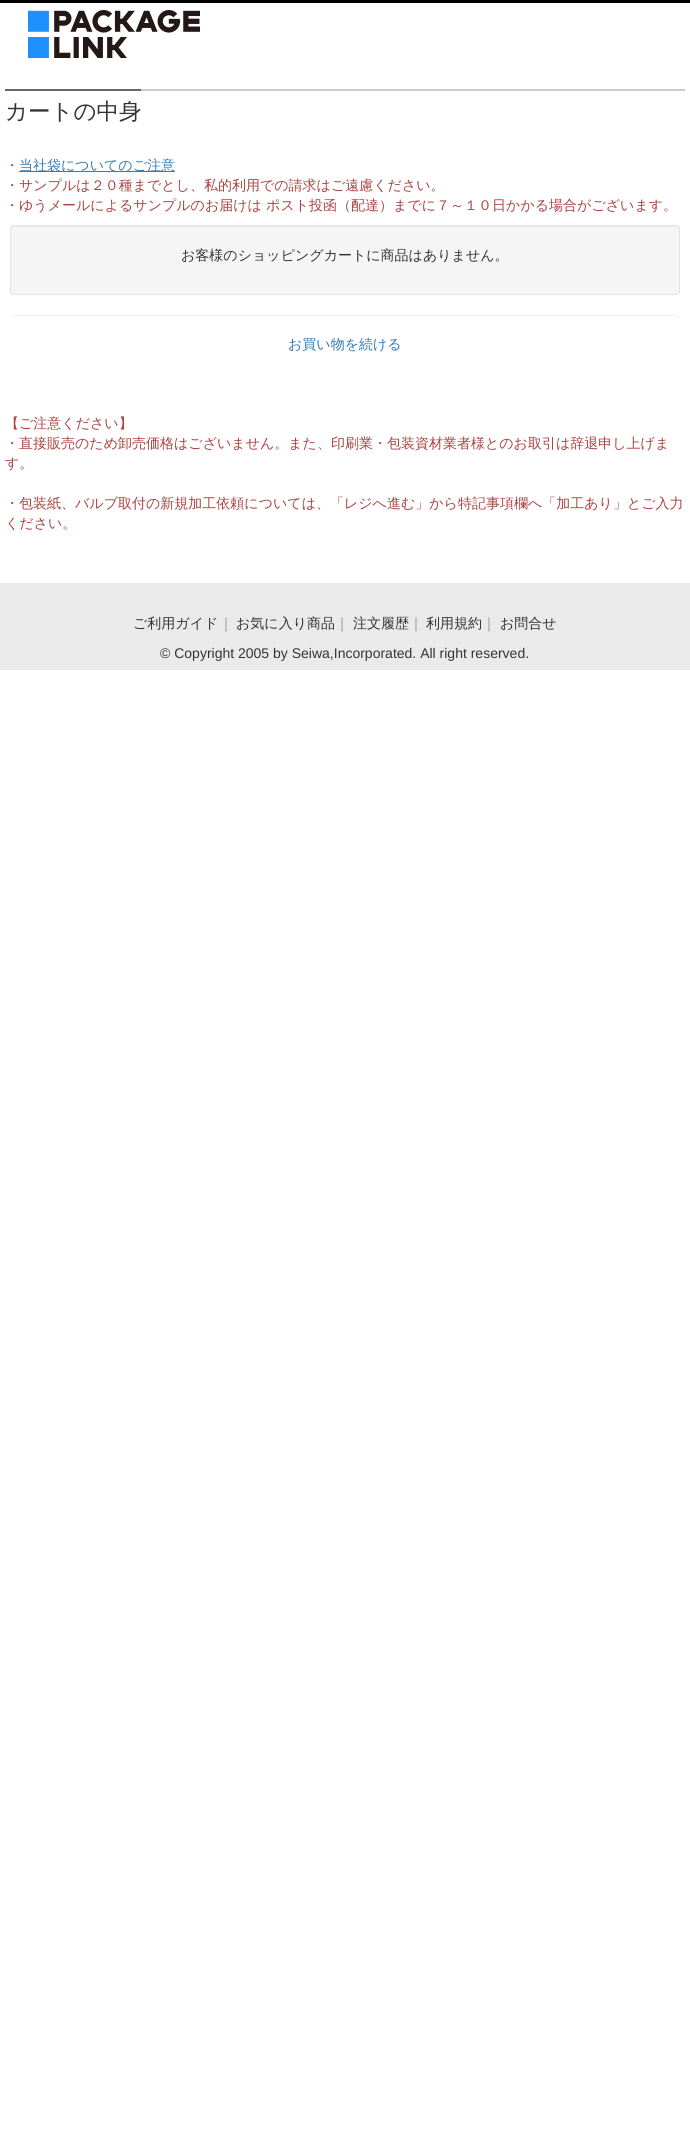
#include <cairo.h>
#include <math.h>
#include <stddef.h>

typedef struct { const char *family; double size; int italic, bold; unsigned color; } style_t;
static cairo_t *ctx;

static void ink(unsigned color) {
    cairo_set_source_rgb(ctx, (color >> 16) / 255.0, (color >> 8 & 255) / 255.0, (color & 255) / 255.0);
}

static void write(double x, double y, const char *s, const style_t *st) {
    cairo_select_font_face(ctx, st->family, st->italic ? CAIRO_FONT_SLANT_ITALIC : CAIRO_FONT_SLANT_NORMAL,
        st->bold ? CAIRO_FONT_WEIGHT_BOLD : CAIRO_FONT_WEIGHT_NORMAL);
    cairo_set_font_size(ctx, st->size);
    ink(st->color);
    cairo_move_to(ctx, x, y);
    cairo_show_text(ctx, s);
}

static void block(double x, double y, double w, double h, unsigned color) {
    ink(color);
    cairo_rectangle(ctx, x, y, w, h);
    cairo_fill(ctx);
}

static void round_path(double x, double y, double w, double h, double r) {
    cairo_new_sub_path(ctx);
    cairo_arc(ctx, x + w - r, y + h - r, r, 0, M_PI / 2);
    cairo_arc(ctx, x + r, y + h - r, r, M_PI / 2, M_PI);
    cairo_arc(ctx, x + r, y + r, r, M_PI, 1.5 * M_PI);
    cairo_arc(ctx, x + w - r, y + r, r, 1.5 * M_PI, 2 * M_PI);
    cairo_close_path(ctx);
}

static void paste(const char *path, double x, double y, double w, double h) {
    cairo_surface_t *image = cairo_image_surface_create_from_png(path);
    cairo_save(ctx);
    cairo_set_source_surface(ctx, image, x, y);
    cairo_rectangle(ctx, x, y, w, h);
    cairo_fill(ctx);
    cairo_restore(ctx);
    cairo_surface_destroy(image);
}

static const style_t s1 = {"WenQuanYi Zen Hei Medium", 22.5, 0, 0, 0x333333};
static const style_t s2 = {"WenQuanYi Zen Hei Medium", 14, 0, 0, 0xa94442};
static const style_t s3 = {"WenQuanYi Zen Hei Medium", 14, 0, 0, 0x337ab7};
static const style_t s4 = {"WenQuanYi Zen Hei Medium", 14, 0, 0, 0x333333};
static const style_t s5 = {"WenQuanYi Zen Hei Medium", 14, 0, 0, 0x888888};
static const style_t s6 = {"Liberation Sans", 14, 0, 0, 0x333333};

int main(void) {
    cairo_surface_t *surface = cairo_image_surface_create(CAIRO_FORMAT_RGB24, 690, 2132);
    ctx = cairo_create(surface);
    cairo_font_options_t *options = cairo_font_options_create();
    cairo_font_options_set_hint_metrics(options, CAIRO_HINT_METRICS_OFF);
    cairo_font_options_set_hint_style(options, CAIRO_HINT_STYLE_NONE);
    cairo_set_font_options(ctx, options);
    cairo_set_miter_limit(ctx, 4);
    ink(0xffffff);
    cairo_paint(ctx);
    block(0, 0, 690, 3, 0x000000);
    paste("pic1.png", 26, 10, 174, 48);
    block(141, 89, 544, 2, 0xcccccc);
    block(5, 89, 136, 2, 0x666666);
    write(5, 119, "カートの中身", &s1);
    write(5, 170, "・", &s2);
    block(19, 171, 156, 1, 0x337ab7);
    write(19, 170, "当社袋についてのご注意", &s3);
    write(5, 190, "・サンプルは２０種までとし、私的利用での請求はご遠慮ください。", &s2);
    write(5, 210, "・ゆうメールによるサンプルのお届けは ポスト投函（配達）までに７～１０日かかる場合がございます。", &s2);
    ink(0xf5f5f5);
    round_path(10, 225, 670, 70, 4);
    cairo_fill(ctx);
    ink(0xe9e9e9);
    cairo_new_path(ctx);
    cairo_move_to(ctx, 14, 227);
    cairo_line_to(ctx, 676, 227);
    cairo_curve_to(ctx, 678, 227, 679, 228, 679, 230);
    cairo_line_to(ctx, 679, 229);
    cairo_curve_to(ctx, 679, 227, 678, 226, 676, 226);
    cairo_line_to(ctx, 14, 226);
    cairo_curve_to(ctx, 12, 226, 11, 227, 11, 229);
    cairo_line_to(ctx, 11, 230);
    cairo_curve_to(ctx, 11, 228, 12, 227, 14, 227);
    cairo_close_path(ctx);
    cairo_fill(ctx);
    round_path(10.5, 225.5, 669, 69, 3.5);
    ink(0xe3e3e3);
    cairo_set_line_width(ctx, 1);
    cairo_stroke(ctx);
    write(181, 260, "お客様のショッピングカートに商品はありません。", &s4);
    ink(0xf2f2f2);
    cairo_new_path(ctx);
    cairo_move_to(ctx, 14, 316);
    cairo_line_to(ctx, 676, 316);
    cairo_curve_to(ctx, 678, 316, 680, 318, 680, 320);
    cairo_curve_to(ctx, 680, 317, 679, 315, 676, 315);
    cairo_line_to(ctx, 14, 315);
    cairo_line_to(ctx, 11, 316);
    cairo_line_to(ctx, 10, 317);
    cairo_line_to(ctx, 10, 320);
    cairo_curve_to(ctx, 10, 318, 12, 316, 14, 316);
    cairo_close_path(ctx);
    cairo_fill(ctx);
    write(288, 349, "お買い物を続ける", &s3);
    write(5, 428, "【ご注意ください】", &s2);
    write(5, 448, "・直接販売のため卸売価格はございません。また、印刷業・包装資材業者様とのお取引は辞退申し上げま", &s2);
    write(5, 468, "す。", &s2);
    write(5, 508, "・包装紙、バルブ取付の新規加工依頼については、「レジへ進む」から特記事項欄へ「加工あり」とご入力", &s2);
    write(5, 528, "ください。", &s2);
    block(0, 583, 690, 87, 0xeaeaea);
    write(133, 628, "ご利用ガイド", &s4);
    write(219, 628, "｜", &s5);
    write(236, 628, "お気に入り商品", &s4);
    write(335, 628, "｜", &s5);
    write(353, 628, "注文履歴", &s4);
    write(409, 628, "｜", &s5);
    write(426, 628, "利用規約", &s4);
    write(482, 628, "｜", &s5);
    write(500, 628, "お問合せ", &s4);
    write(160, 658, "© Copyright 2005 by Seiwa,Incorporated. All right reserved.", &s6);
    cairo_surface_write_to_png(surface, "screenshot.png");
    cairo_font_options_destroy(options);
    cairo_destroy(ctx);
    cairo_surface_destroy(surface);
    return 0;
}
